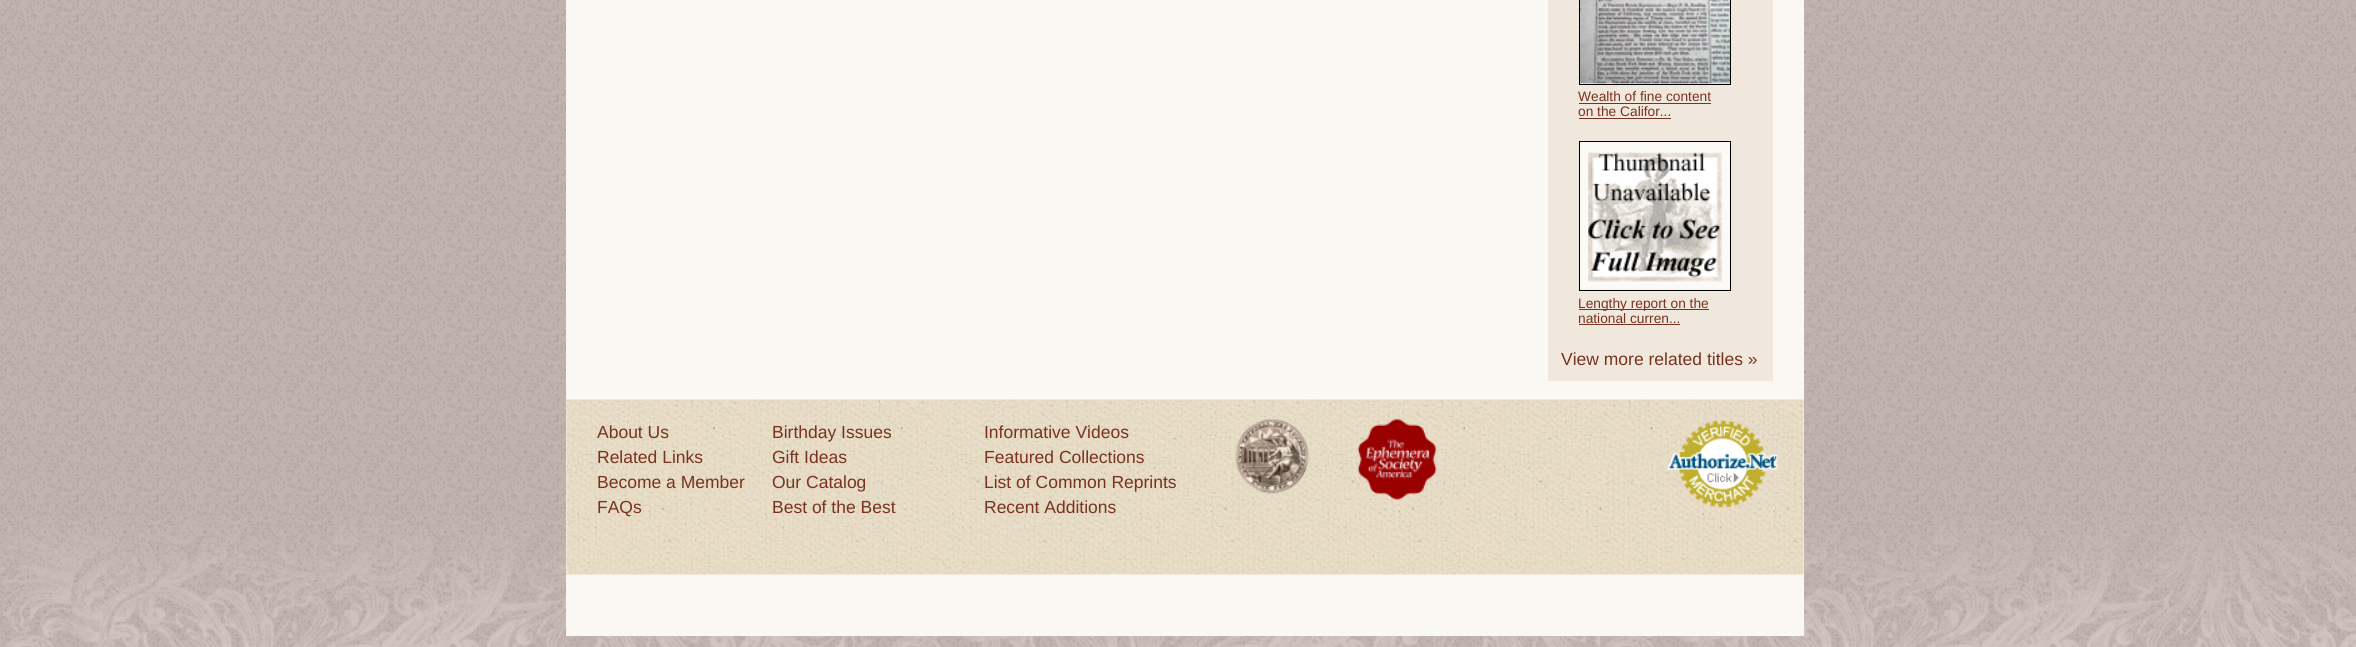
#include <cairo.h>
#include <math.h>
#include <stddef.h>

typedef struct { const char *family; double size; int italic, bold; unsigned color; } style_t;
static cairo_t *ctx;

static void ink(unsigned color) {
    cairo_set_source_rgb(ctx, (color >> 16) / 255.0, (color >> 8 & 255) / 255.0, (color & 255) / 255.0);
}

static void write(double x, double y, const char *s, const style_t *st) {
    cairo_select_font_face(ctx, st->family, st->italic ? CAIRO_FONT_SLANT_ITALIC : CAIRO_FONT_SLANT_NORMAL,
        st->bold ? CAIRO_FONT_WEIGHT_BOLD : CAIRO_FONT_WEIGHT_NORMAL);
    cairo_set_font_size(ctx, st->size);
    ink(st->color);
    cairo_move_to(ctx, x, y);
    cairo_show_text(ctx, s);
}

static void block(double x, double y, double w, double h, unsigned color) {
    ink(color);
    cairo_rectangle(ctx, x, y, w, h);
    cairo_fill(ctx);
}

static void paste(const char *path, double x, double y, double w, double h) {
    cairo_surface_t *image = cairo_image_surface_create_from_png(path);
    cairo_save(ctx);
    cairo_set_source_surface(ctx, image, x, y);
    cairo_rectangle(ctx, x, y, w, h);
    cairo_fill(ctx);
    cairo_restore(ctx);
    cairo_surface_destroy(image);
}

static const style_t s1 = {"Liberation Sans", 13.75, 0, 0, 0x78321f};
static const style_t s2 = {"Liberation Sans", 17.5, 0, 0, 0x78321f};

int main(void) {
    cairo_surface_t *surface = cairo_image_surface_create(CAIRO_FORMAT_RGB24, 2356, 647);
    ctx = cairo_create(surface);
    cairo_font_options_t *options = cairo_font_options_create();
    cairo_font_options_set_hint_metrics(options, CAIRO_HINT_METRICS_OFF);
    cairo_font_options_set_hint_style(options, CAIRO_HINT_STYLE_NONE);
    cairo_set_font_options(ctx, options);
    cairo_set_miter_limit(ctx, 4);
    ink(0xffffff);
    cairo_paint(ctx);
    paste("pic1.png", 0, 0, 2356, 647);
    paste("pic8.png", 0, 517, 2356, 130);
    block(566, 0, 1238, 636, 0xfaf8f2);
    block(1548, 0, 225, 381, 0xf0e8dc);
    cairo_rectangle(ctx, 1579.5, -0.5, 151, 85);
    ink(0x000000);
    cairo_set_line_width(ctx, 1);
    cairo_stroke(ctx);
    paste("pic2.png", 1580, 0, 150, 84);
    write(1578, 101, "Wealth of fine content", &s1);
    block(1579, 103, 132, 1, 0x78321f);
    write(1578, 116, "on the Califor...", &s1);
    block(1579, 118, 92, 1, 0x78321f);
    cairo_rectangle(ctx, 1579.5, 141.5, 151, 149);
    ink(0x000000);
    cairo_stroke(ctx);
    paste("pic3.png", 1580, 142, 150, 148);
    block(1579, 309, 130, 1, 0x78321f);
    write(1578, 308, "Lengthy report on the", &s1);
    write(1578, 323, "national curren...", &s1);
    block(1579, 324, 101, 1, 0x78321f);
    write(1561, 365, "View more related titles »", &s2);
    paste("pic4.png", 566, 399, 1238, 176);
    write(597, 438, "About Us", &s2);
    write(597, 463, "Related Links", &s2);
    write(597, 488, "Become a Member", &s2);
    write(597, 513, "FAQs", &s2);
    write(772, 438, "Birthday Issues", &s2);
    write(772, 463, "Gift Ideas", &s2);
    write(772, 488, "Our Catalog", &s2);
    write(772, 513, "Best of the Best", &s2);
    write(984, 438, "Informative Videos", &s2);
    write(984, 463, "Featured Collections", &s2);
    write(984, 488, "List of Common Reprints", &s2);
    write(984, 513, "Recent Additions", &s2);
    paste("pic5.png", 1235, 419, 74, 75);
    paste("pic6.png", 1357, 418, 80, 82);
    paste("pic7.png", 1667, 420, 111, 88);
    cairo_surface_write_to_png(surface, "screenshot.png");
    cairo_font_options_destroy(options);
    cairo_destroy(ctx);
    cairo_surface_destroy(surface);
    return 0;
}
